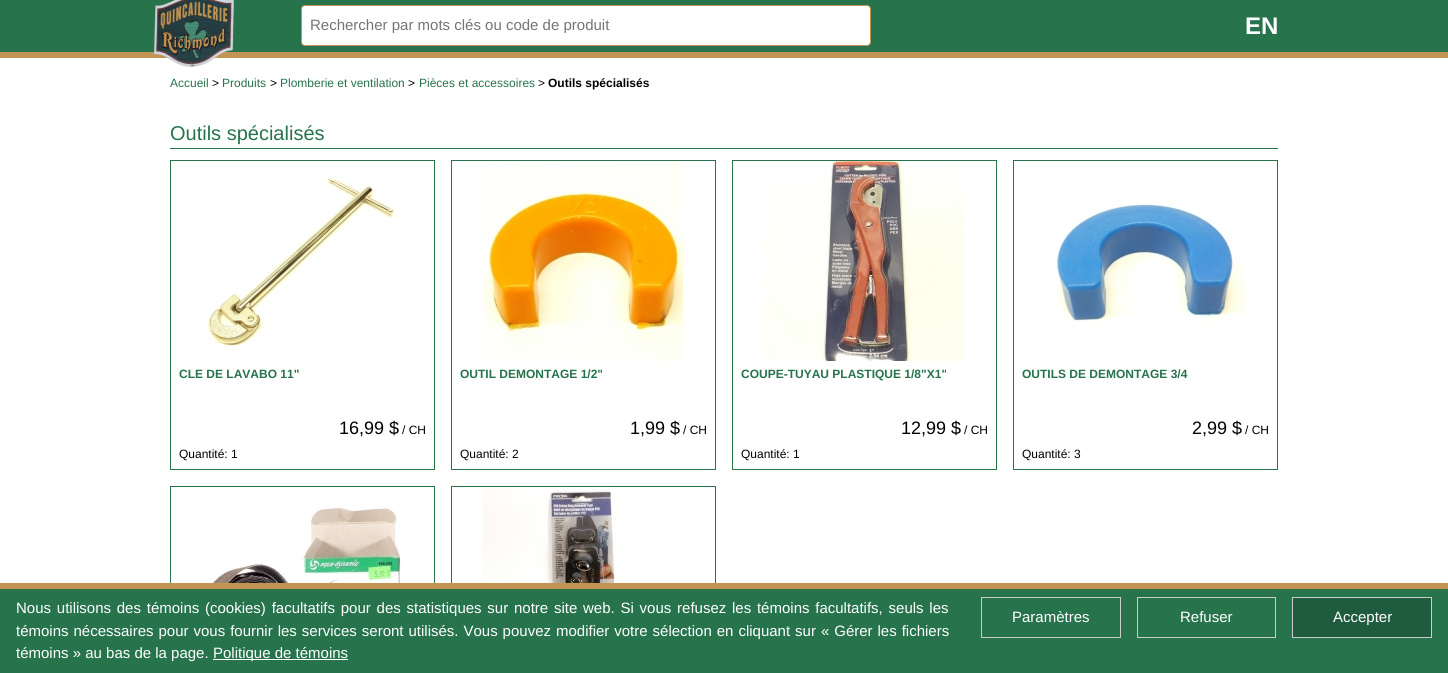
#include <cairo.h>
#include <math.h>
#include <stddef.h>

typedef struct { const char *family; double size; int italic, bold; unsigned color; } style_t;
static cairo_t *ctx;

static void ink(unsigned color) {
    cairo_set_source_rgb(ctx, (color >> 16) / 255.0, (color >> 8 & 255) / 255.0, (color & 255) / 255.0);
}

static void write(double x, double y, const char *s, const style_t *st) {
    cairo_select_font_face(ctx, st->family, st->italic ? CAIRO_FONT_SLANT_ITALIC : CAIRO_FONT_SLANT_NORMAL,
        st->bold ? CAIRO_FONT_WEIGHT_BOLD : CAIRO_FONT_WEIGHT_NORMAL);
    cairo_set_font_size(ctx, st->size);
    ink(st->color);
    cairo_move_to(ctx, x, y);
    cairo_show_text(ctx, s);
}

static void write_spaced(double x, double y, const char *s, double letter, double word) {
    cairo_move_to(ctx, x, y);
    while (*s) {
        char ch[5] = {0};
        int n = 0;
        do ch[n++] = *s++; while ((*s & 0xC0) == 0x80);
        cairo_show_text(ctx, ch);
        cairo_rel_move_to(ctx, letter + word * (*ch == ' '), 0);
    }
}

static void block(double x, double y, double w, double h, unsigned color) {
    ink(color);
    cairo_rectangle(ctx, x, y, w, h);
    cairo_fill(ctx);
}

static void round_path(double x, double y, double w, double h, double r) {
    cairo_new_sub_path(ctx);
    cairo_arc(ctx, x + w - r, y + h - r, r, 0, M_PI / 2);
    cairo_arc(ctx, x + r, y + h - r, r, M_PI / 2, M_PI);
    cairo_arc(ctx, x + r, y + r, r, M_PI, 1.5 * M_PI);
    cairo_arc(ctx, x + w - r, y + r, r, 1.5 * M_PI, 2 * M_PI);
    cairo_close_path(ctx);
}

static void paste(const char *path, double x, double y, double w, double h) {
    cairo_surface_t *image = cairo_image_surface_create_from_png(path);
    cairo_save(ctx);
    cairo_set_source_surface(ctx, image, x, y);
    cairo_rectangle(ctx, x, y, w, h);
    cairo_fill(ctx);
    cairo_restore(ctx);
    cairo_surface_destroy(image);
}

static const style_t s1 = {"Liberation Sans", 15, 0, 0, 0x757575};
static const style_t s2 = {"Liberation Sans", 24, 0, 1, 0xffffff};
static const style_t s3 = {"Liberation Sans", 12, 0, 0, 0x26734c};
static const style_t s4 = {"Liberation Sans", 12, 0, 0, 0x000000};
static const style_t s5 = {"Liberation Sans", 12, 0, 1, 0x000000};
static const style_t s6 = {"Liberation Sans", 20, 0, 0, 0x26734c};
static const style_t s7 = {"Liberation Sans", 12, 0, 1, 0x26734c};
static const style_t s8 = {"Liberation Sans", 18, 0, 0, 0x000000};
static const style_t s9 = {"Liberation Sans", 15, 0, 0, 0xffffff};

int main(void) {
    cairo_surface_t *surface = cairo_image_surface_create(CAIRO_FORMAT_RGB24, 1448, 673);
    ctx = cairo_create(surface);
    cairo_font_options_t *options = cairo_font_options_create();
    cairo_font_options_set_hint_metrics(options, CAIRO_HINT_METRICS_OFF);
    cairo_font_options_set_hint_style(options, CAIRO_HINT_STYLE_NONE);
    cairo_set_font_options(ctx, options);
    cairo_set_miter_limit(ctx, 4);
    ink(0xffffff);
    cairo_paint(ctx);
    block(0, 0, 1448, 52, 0x26734c);
    block(0, 52, 1448, 6, 0xc29554);
    paste("pic1.png", 154, 0, 80, 67);
    ink(0xffffff);
    round_path(301.5, 5.5, 569, 40, 3.5);
    cairo_fill_preserve(ctx);
    ink(0xc29554);
    cairo_set_line_width(ctx, 1);
    cairo_stroke(ctx);
    cairo_save(ctx);
    cairo_rectangle(ctx, 310, 16, 552, 17);
    cairo_clip(ctx);
    write(310, 30, "Rechercher par mots clés ou code de produit", &s1);
    cairo_restore(ctx);
    write(1245, 34, "EN", &s2);
    write(170, 87, "Accueil", &s3);
    write(212, 87, ">", &s4);
    write(222, 87, "Produits", &s3);
    write(270, 87, ">", &s4);
    write(280, 87, "Plomberie et ventilation", &s3);
    write(408, 87, ">", &s4);
    write(419, 87, "Pièces et accessoires", &s3);
    write(538, 87, ">", &s4);
    write(548, 87, "Outils spécialisés", &s5);
    block(170, 148, 1108, 1, 0x26734c);
    write(170, 140, "Outils spécialisés", &s6);
    cairo_rectangle(ctx, 170.5, 160.5, 264, 309);
    cairo_stroke(ctx);
    paste("pic2.png", 207, 176, 189, 171);
    write(179, 378, "CLE DE LAVABO 11\"", &s7);
    write(339, 434, "16,99 $", &s8);
    write(402, 434, "/ CH", &s4);
    write(179, 458, "Quantité: 1", &s4);
    cairo_rectangle(ctx, 451.5, 160.5, 264, 309);
    ink(0x26734c);
    cairo_stroke(ctx);
    paste("pic3.png", 483, 161, 200, 200);
    write(460, 378, "OUTIL DEMONTAGE 1/2\"", &s7);
    write(630, 434, "1,99 $", &s8);
    write(683, 434, "/ CH", &s4);
    write(460, 458, "Quantité: 2", &s4);
    cairo_rectangle(ctx, 732.5, 160.5, 264, 309);
    ink(0x26734c);
    cairo_stroke(ctx);
    paste("pic4.png", 764, 161, 200, 200);
    write(741, 378, "COUPE-TUYAU PLASTIQUE 1/8\"X1\"", &s7);
    write(901, 434, "12,99 $", &s8);
    write(964, 434, "/ CH", &s4);
    write(741, 458, "Quantité: 1", &s4);
    cairo_rectangle(ctx, 1013.5, 160.5, 264, 309);
    ink(0x26734c);
    cairo_stroke(ctx);
    paste("pic5.png", 1056, 204, 189, 123);
    write(1022, 378, "OUTILS DE DEMONTAGE 3/4", &s7);
    write(1192, 434, "2,99 $", &s8);
    write(1245, 434, "/ CH", &s4);
    write(1022, 458, "Quantité: 3", &s4);
    cairo_rectangle(ctx, 170.5, 486.5, 264, 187);
    ink(0x26734c);
    cairo_stroke(ctx);
    paste("pic6.png", 202, 505, 200, 78);
    cairo_rectangle(ctx, 451.5, 486.5, 264, 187);
    cairo_stroke(ctx);
    paste("pic7.png", 483, 487, 144, 96);
    block(0, 589, 1448, 84, 0x26734c);
    block(0, 583, 1448, 6, 0xc29554);
    cairo_set_font_size(ctx, 15);
    ink(0xffffff);
    write_spaced(16, 613, "Nous utilisons des témoins (cookies) facultatifs pour des statistiques sur notre site web. Si vous refusez les témoins facultatifs, seuls les", 0, 1.6);
    write_spaced(16, 636, "témoins nécessaires pour vous fournir les services seront utilisés. Vous pouvez modifier votre sélection en cliquant sur « Gérer les fichiers", 0, 0.8);
    write(16, 658, "témoins » au bas de la page.", &s9);
    block(213, 659, 135, 1, 0xffffff);
    write(213, 658, "Politique de témoins", &s9);
    cairo_rectangle(ctx, 981.5, 597.5, 139, 40);
    ink(0xcccccc);
    cairo_stroke(ctx);
    write(1012, 622, "Paramètres", &s9);
    cairo_rectangle(ctx, 1137.5, 597.5, 138, 40);
    ink(0xcccccc);
    cairo_stroke(ctx);
    write(1180, 622, "Refuser", &s9);
    ink(0x1f5c3d);
    cairo_rectangle(ctx, 1292.5, 597.5, 139, 40);
    cairo_fill_preserve(ctx);
    ink(0xcccccc);
    cairo_stroke(ctx);
    write(1333, 622, "Accepter", &s9);
    cairo_surface_write_to_png(surface, "screenshot.png");
    cairo_font_options_destroy(options);
    cairo_destroy(ctx);
    cairo_surface_destroy(surface);
    return 0;
}
